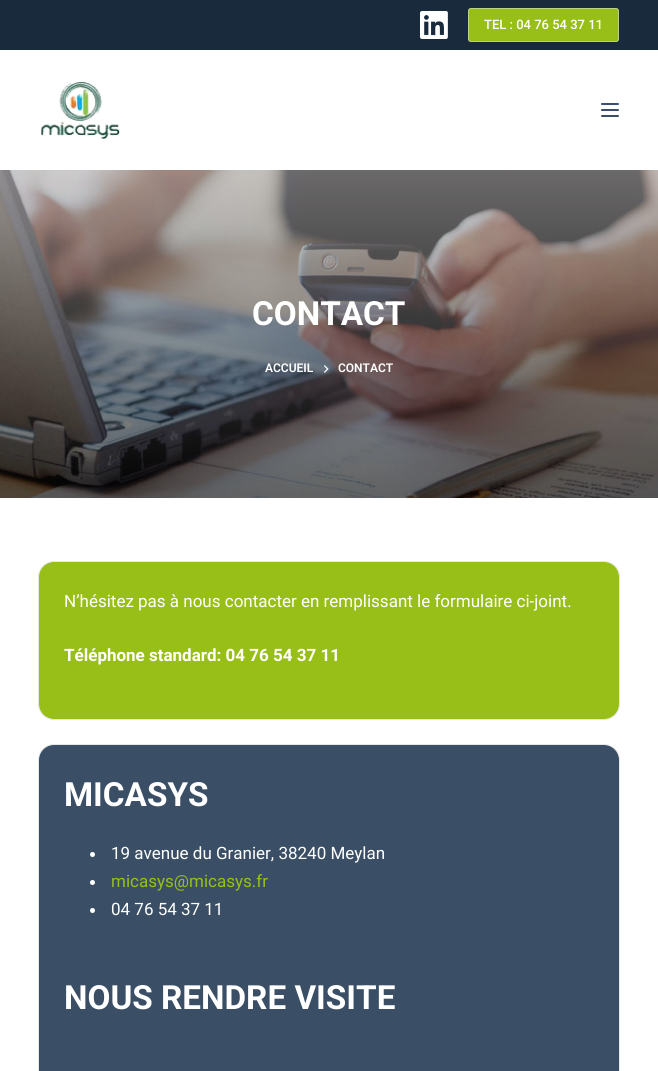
#include <cairo.h>
#include <math.h>
#include <stddef.h>

typedef struct { const char *family; double size; int italic, bold; unsigned color; } style_t;
static cairo_t *ctx;

static void ink(unsigned color) {
    cairo_set_source_rgb(ctx, (color >> 16) / 255.0, (color >> 8 & 255) / 255.0, (color & 255) / 255.0);
}

static void write(double x, double y, const char *s, const style_t *st) {
    cairo_select_font_face(ctx, st->family, st->italic ? CAIRO_FONT_SLANT_ITALIC : CAIRO_FONT_SLANT_NORMAL,
        st->bold ? CAIRO_FONT_WEIGHT_BOLD : CAIRO_FONT_WEIGHT_NORMAL);
    cairo_set_font_size(ctx, st->size);
    ink(st->color);
    cairo_move_to(ctx, x, y);
    cairo_show_text(ctx, s);
}

static void block(double x, double y, double w, double h, unsigned color) {
    ink(color);
    cairo_rectangle(ctx, x, y, w, h);
    cairo_fill(ctx);
}

static void round_path(double x, double y, double w, double h, double r) {
    cairo_new_sub_path(ctx);
    cairo_arc(ctx, x + w - r, y + h - r, r, 0, M_PI / 2);
    cairo_arc(ctx, x + r, y + h - r, r, M_PI / 2, M_PI);
    cairo_arc(ctx, x + r, y + r, r, M_PI, 1.5 * M_PI);
    cairo_arc(ctx, x + w - r, y + r, r, 1.5 * M_PI, 2 * M_PI);
    cairo_close_path(ctx);
}

static void paste(const char *path, double x, double y, double w, double h) {
    cairo_surface_t *image = cairo_image_surface_create_from_png(path);
    cairo_save(ctx);
    cairo_set_source_surface(ctx, image, x, y);
    cairo_rectangle(ctx, x, y, w, h);
    cairo_fill(ctx);
    cairo_restore(ctx);
    cairo_surface_destroy(image);
}

static const style_t s1 = {"Roboto Medium", 13, 0, 0, 0xffffff};
static const style_t s2 = {"Roboto", 33.25, 0, 1, 0xffffff};
static const style_t s3 = {"Roboto SemiBold", 12, 0, 0, 0xffffff};
static const style_t s4 = {"Roboto", 17, 0, 0, 0xffffff};
static const style_t s5 = {"Roboto", 17, 0, 1, 0xffffff};
static const style_t s6 = {"Roboto", 17, 0, 0, 0x98bf18};

int main(void) {
    cairo_surface_t *surface = cairo_image_surface_create(CAIRO_FORMAT_RGB24, 658, 1071);
    ctx = cairo_create(surface);
    cairo_font_options_t *options = cairo_font_options_create();
    cairo_font_options_set_hint_metrics(options, CAIRO_HINT_METRICS_OFF);
    cairo_font_options_set_hint_style(options, CAIRO_HINT_STYLE_NONE);
    cairo_set_font_options(ctx, options);
    cairo_set_miter_limit(ctx, 4);
    ink(0xffffff);
    cairo_paint(ctx);
    block(0, 0, 658, 50, 0x192a3d);
    paste("pic1.png", 420, 11, 28, 28);
    ink(0x98bf18);
    round_path(468, 8, 151, 34, 3);
    cairo_fill(ctx);
    round_path(468.5, 8.5, 150, 33, 2.5);
    cairo_set_source_rgba(ctx, 0.878, 0.898, 0.922, 0.5);
    cairo_set_line_width(ctx, 1);
    cairo_stroke(ctx);
    write(484, 29, "TEL : 04 76 54 37 11", &s1);
    paste("pic2.png", 41, 80, 79, 59);
    ink(0x3a4f66);
    round_path(601, 103, 18, 2, 1);
    cairo_fill(ctx);
    round_path(601, 109, 18, 2, 1);
    cairo_fill(ctx);
    round_path(601, 115, 18, 2, 1);
    cairo_fill(ctx);
    paste("pic3.png", 0, 170, 658, 328);
    write(252, 325, "CONTACT", &s2);
    write(265, 372, "ACCUEIL", &s3);
    paste("pic4.png", 324, 365, 5, 8);
    write(338, 372, "CONTACT", &s3);
    round_path(38.5, 561.5, 581, 158, 15.5);
    ink(0xe6e6e6);
    cairo_stroke(ctx);
    ink(0x98bf18);
    round_path(39, 562, 580, 157, 15);
    cairo_fill(ctx);
    write(64, 607, "N’hésitez pas à nous contacter en remplissant le formulaire ci-joint.", &s4);
    write(64, 661, "Téléphone standard: 04 76 54 37 11", &s5);
    round_path(38.5, 744.5, 581, 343, 15.5);
    ink(0xe6e6e6);
    cairo_stroke(ctx);
    ink(0x3a4f66);
    round_path(39, 745, 580, 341, 15);
    cairo_fill(ctx);
    write(64, 806, "MICASYS", &s2);
    cairo_new_path(ctx);
    cairo_arc(ctx, 92.5, 854.5, 2.5, 0, 2 * M_PI);
    cairo_fill(ctx);
    write(111, 859, "19 avenue du Granier, 38240 Meylan", &s4);
    cairo_new_path(ctx);
    cairo_arc(ctx, 92.5, 882.5, 2.5, 0, 2 * M_PI);
    cairo_fill(ctx);
    write(111, 887, "micasys@micasys.fr", &s6);
    ink(0xffffff);
    cairo_new_path(ctx);
    cairo_arc(ctx, 92.5, 910.5, 2.5, 0, 2 * M_PI);
    cairo_fill(ctx);
    write(111, 915, "04 76 54 37 11", &s4);
    write(64, 1009, "NOUS RENDRE VISITE", &s2);
    cairo_surface_write_to_png(surface, "screenshot.png");
    cairo_font_options_destroy(options);
    cairo_destroy(ctx);
    cairo_surface_destroy(surface);
    return 0;
}
